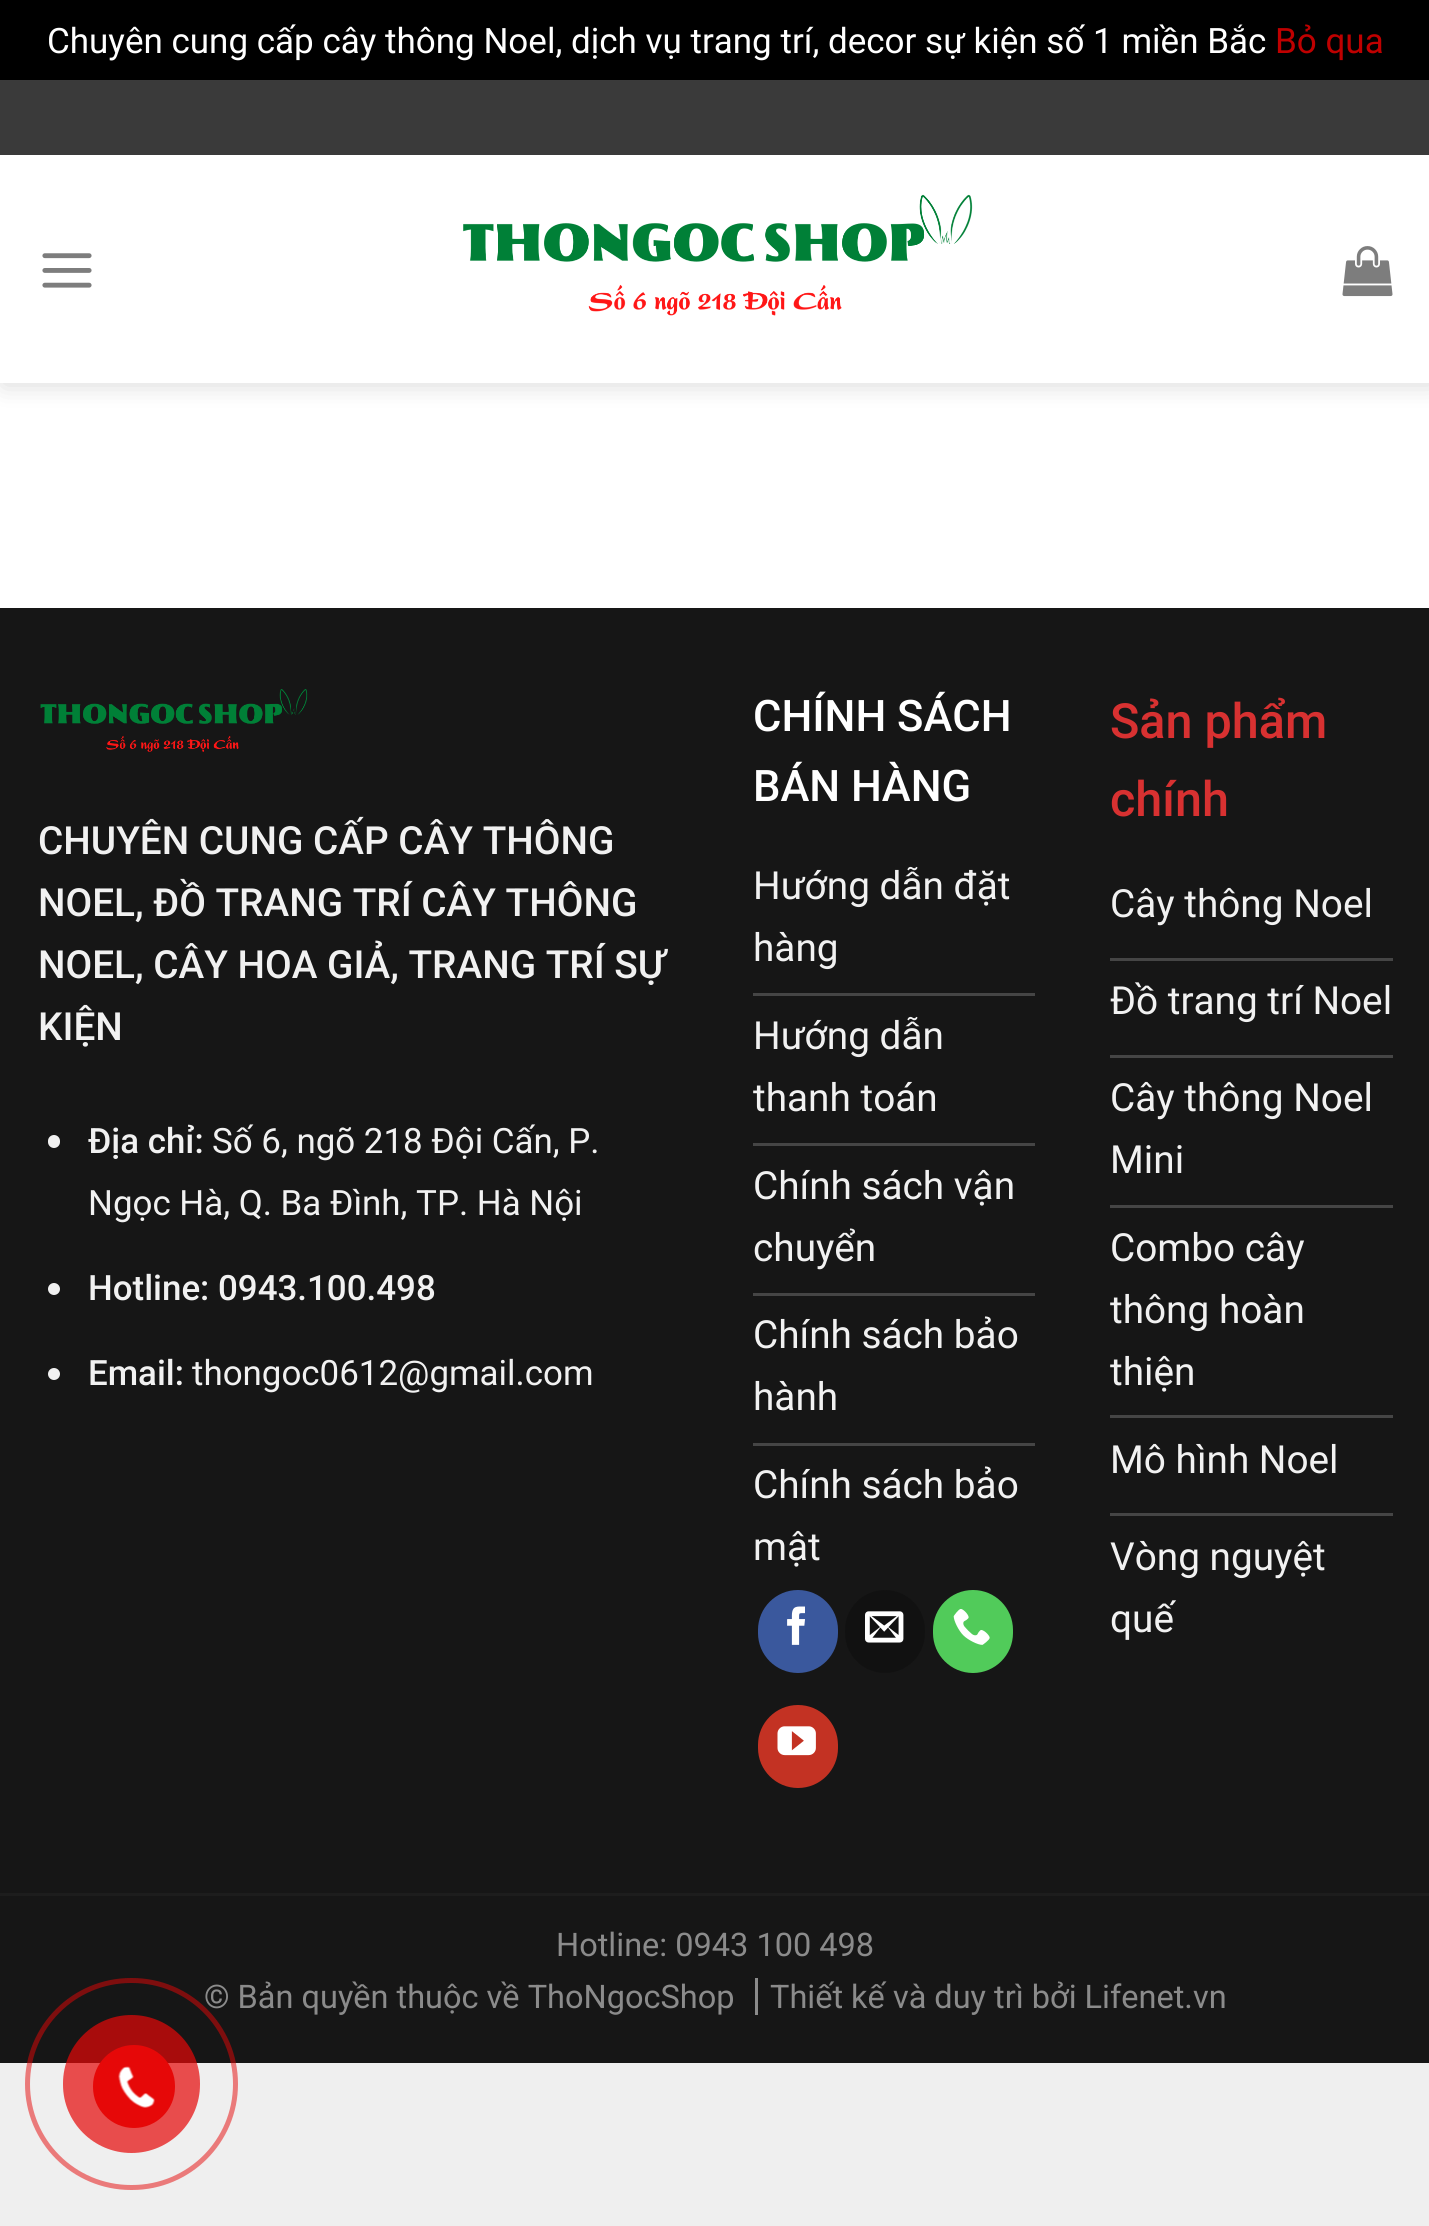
#include <cairo.h>
#include <math.h>
#include <stddef.h>

typedef struct { const char *family; double size; int italic, bold; unsigned color; } style_t;
static cairo_t *ctx;

static void ink(unsigned color) {
    cairo_set_source_rgb(ctx, (color >> 16) / 255.0, (color >> 8 & 255) / 255.0, (color & 255) / 255.0);
}

static void write(double x, double y, const char *s, const style_t *st) {
    cairo_select_font_face(ctx, st->family, st->italic ? CAIRO_FONT_SLANT_ITALIC : CAIRO_FONT_SLANT_NORMAL,
        st->bold ? CAIRO_FONT_WEIGHT_BOLD : CAIRO_FONT_WEIGHT_NORMAL);
    cairo_set_font_size(ctx, st->size);
    ink(st->color);
    cairo_move_to(ctx, x, y);
    cairo_show_text(ctx, s);
}

static void block(double x, double y, double w, double h, unsigned color) {
    ink(color);
    cairo_rectangle(ctx, x, y, w, h);
    cairo_fill(ctx);
}

static void round_path(double x, double y, double w, double h, double r) {
    cairo_new_sub_path(ctx);
    cairo_arc(ctx, x + w - r, y + h - r, r, 0, M_PI / 2);
    cairo_arc(ctx, x + r, y + h - r, r, M_PI / 2, M_PI);
    cairo_arc(ctx, x + r, y + r, r, M_PI, 1.5 * M_PI);
    cairo_arc(ctx, x + w - r, y + r, r, 1.5 * M_PI, 2 * M_PI);
    cairo_close_path(ctx);
}

static void blur_box(double x, double y, double w, double h, double r, double blur, double alpha) {
    cairo_push_group_with_content(ctx, CAIRO_CONTENT_ALPHA);
    cairo_set_operator(ctx, CAIRO_OPERATOR_SOURCE);
    for (int i = 15; i >= -15 && fmin(w, h) + blur * i / 3 > 0; i -= 2) {
        double e = blur * i / 6;
        cairo_set_source_rgba(ctx, 0, 0, 0, alpha * erfc((i - 1) / 8.5) / 2);
        round_path(x - e, y - e, w + 2 * e, h + 2 * e, fmax(0, fmin(r + e + blur * .6, fmin(w, h) / 2 + e)));
        cairo_fill(ctx);
    }
    cairo_pattern_t *soft = cairo_pop_group(ctx);
    cairo_mask(ctx, soft);
    cairo_pattern_destroy(soft);
}

static void paste(const char *path, double x, double y, double w, double h) {
    cairo_surface_t *image = cairo_image_surface_create_from_png(path);
    cairo_save(ctx);
    cairo_set_source_surface(ctx, image, x, y);
    cairo_rectangle(ctx, x, y, w, h);
    cairo_fill(ctx);
    cairo_restore(ctx);
    cairo_surface_destroy(image);
}

static const style_t s1 = {"Roboto", 35, 0, 0, 0xffffff};
static const style_t s2 = {"Roboto", 35, 0, 0, 0xbf0000};
static const style_t s3 = {"Roboto Medium", 38.75, 0, 0, 0xf1f1f1};
static const style_t s4 = {"Roboto Medium", 34.9, 0, 0, 0xf1f1f1};
static const style_t s5 = {"Roboto", 34.9, 0, 0, 0xf1f1f1};
static const style_t s6 = {"Roboto Medium", 43.5, 0, 0, 0xffffff};
static const style_t s7 = {"Roboto", 38.75, 0, 0, 0xf1f1f1};
static const style_t s8 = {"Roboto Medium", 48.5, 0, 0, 0xd83131};
static const style_t s9 = {"Roboto", 32.5, 0, 0, 0x8b8b8b};

int main(void) {
    cairo_surface_t *surface = cairo_image_surface_create(CAIRO_FORMAT_RGB24, 1429, 2226);
    ctx = cairo_create(surface);
    cairo_font_options_t *options = cairo_font_options_create();
    cairo_font_options_set_hint_metrics(options, CAIRO_HINT_METRICS_OFF);
    cairo_font_options_set_hint_style(options, CAIRO_HINT_STYLE_NONE);
    cairo_set_font_options(ctx, options);
    cairo_set_miter_limit(ctx, 4);
    ink(0xefefef);
    cairo_paint(ctx);
    block(0, 0, 1429, 80, 0x000000);
    write(47, 53, "Chuyên cung cấp cây thông Noel, dịch vụ trang trí, decor sự kiện số 1 miền Bắc", &s1);
    write(1275, 53, "Bỏ qua", &s2);
    block(0, 155, 1429, 453, 0xffffff);
    cairo_save(ctx);
    cairo_set_fill_rule(ctx, CAIRO_FILL_RULE_EVEN_ODD);
    cairo_new_path(ctx);
    cairo_move_to(ctx, 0, 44);
    cairo_line_to(ctx, 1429, 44);
    cairo_line_to(ctx, 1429, 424);
    cairo_line_to(ctx, 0, 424);
    cairo_close_path(ctx);
    cairo_move_to(ctx, 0, 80);
    cairo_line_to(ctx, 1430, 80);
    cairo_line_to(ctx, 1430, 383);
    cairo_line_to(ctx, 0, 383);
    cairo_close_path(ctx);
    cairo_clip(ctx);
    ink(0x000000);
    blur_box(3, 83, 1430, 302, 0, 12.5, 0.15);
    cairo_restore(ctx);
    block(0, 80, 1429, 75, 0x3a3a3a);
    paste("pic1.png", 42, 253, 50, 35);
    paste("pic2.png", 463, 194, 510, 122);
    paste("pic3.png", 1342, 246, 51, 51);
    cairo_set_source_rgba(ctx, 1, 1, 1, 0.9);
    cairo_rectangle(ctx, 0, 382, 1429, 1);
    cairo_fill(ctx);
    block(0, 608, 1429, 1285, 0x161616);
    paste("pic4.png", 40, 689, 268, 63);
    write(38, 854, "CHUYÊN CUNG CẤP CÂY THÔNG", &s3);
    write(38, 916, "NOEL, ĐỒ TRANG TRÍ CÂY THÔNG", &s3);
    write(38, 978, "NOEL, CÂY HOA GIẢ, TRANG TRÍ SỰ", &s3);
    write(38, 1040, "KIỆN", &s3);
    round_path(48, 1135, 12, 13, 6);
    cairo_fill(ctx);
    write(88, 1153, "Địa chỉ:", &s4);
    write(212, 1153, "Số 6, ngõ 218 Đội Cấn, P.", &s5);
    write(88, 1215, "Ngọc Hà, Q. Ba Đình, TP. Hà Nội", &s5);
    cairo_new_path(ctx);
    cairo_arc(ctx, 54, 1289, 6, 0, 2 * M_PI);
    cairo_fill(ctx);
    write(88, 1300, "Hotline: 0943.100.498", &s4);
    cairo_new_path(ctx);
    cairo_arc(ctx, 54, 1374, 6, 0, 2 * M_PI);
    cairo_fill(ctx);
    write(88, 1385, "Email:", &s4);
    write(192, 1385, "thongoc0612@gmail.com", &s5);
    write(753, 731, "CHÍNH SÁCH", &s6);
    write(753, 801, "BÁN HÀNG", &s6);
    block(753, 993, 282, 3, 0x454545);
    write(753, 899, "Hướng dẫn đặt", &s7);
    write(753, 961, "hàng", &s7);
    block(753, 1143, 282, 3, 0x454545);
    write(753, 1049, "Hướng dẫn", &s7);
    write(753, 1111, "thanh toán", &s7);
    block(753, 1293, 282, 3, 0x454545);
    write(753, 1199, "Chính sách vận", &s7);
    write(753, 1261, "chuyển", &s7);
    block(753, 1443, 282, 3, 0x454545);
    write(753, 1348, "Chính sách bảo", &s7);
    write(753, 1410, "hành", &s7);
    write(753, 1498, "Chính sách bảo", &s7);
    write(753, 1560, "mật", &s7);
    ink(0x3a589d);
    round_path(759.5, 1591.5, 77, 80, 38.5);
    cairo_fill_preserve(ctx);
    cairo_set_line_width(ctx, 3);
    cairo_stroke(ctx);
    paste("pic5.png", 787, 1606, 18, 39);
    ink(0x111111);
    round_path(845, 1590, 80, 83, 40);
    cairo_fill(ctx);
    paste("pic6.png", 865, 1611, 39, 32);
    ink(0x51cb5a);
    round_path(934.5, 1591.5, 77, 80, 38.5);
    cairo_fill_preserve(ctx);
    cairo_stroke(ctx);
    paste("pic7.png", 953, 1609, 37, 36);
    ink(0xc33223);
    round_path(759.5, 1706.5, 77, 80, 38.5);
    cairo_fill_preserve(ctx);
    cairo_stroke(ctx);
    paste("pic8.png", 777, 1726, 39, 30);
    write(1110, 738, "Sản phẩm", &s8);
    write(1110, 816, "chính", &s8);
    block(1110, 958, 283, 3, 0x454545);
    write(1110, 917, "Cây thông Noel", &s7);
    block(1110, 1055, 283, 3, 0x454545);
    write(1110, 1014, "Đồ trang trí Noel", &s7);
    block(1110, 1205, 283, 3, 0x454545);
    write(1110, 1111, "Cây thông Noel", &s7);
    write(1110, 1173, "Mini", &s7);
    block(1110, 1415, 283, 3, 0x454545);
    write(1110, 1261, "Combo cây", &s7);
    write(1110, 1323, "thông hoàn", &s7);
    write(1110, 1385, "thiện", &s7);
    block(1110, 1513, 283, 3, 0x454545);
    write(1110, 1473, "Mô hình Noel", &s7);
    write(1110, 1570, "Vòng nguyệt", &s7);
    write(1110, 1632, "quế", &s7);
    block(0, 1896, 1429, 167, 0x161616);
    block(0, 1893, 1429, 3, 0x1d1d1d);
    write(556, 1956, "Hotline: 0943 100 498", &s9);
    write(204, 2008, "© Bản quyền thuộc về ThoNgocShop", &s9);
    write(770, 2008, "Thiết kế và duy trì bởi Lifenet.vn", &s9);
    block(755, 1978, 3, 37, 0x8b8b8b);
    round_path(27.5, 1980.5, 208, 207, 103.5);
    cairo_set_source_rgba(ctx, 0.902, 0.031, 0.031, 0.5);
    cairo_set_line_width(ctx, 5);
    cairo_stroke(ctx);
    cairo_set_source_rgba(ctx, 0.902, 0.031, 0.031, 0.7);
    round_path(63, 2015, 137, 138, 68.5);
    cairo_fill(ctx);
    ink(0xe60808);
    round_path(93, 2045, 82, 83, 41);
    cairo_fill(ctx);
    paste("pic9.png", 118, 2066, 37, 42);
    cairo_surface_write_to_png(surface, "screenshot.png");
    cairo_font_options_destroy(options);
    cairo_destroy(ctx);
    cairo_surface_destroy(surface);
    return 0;
}
